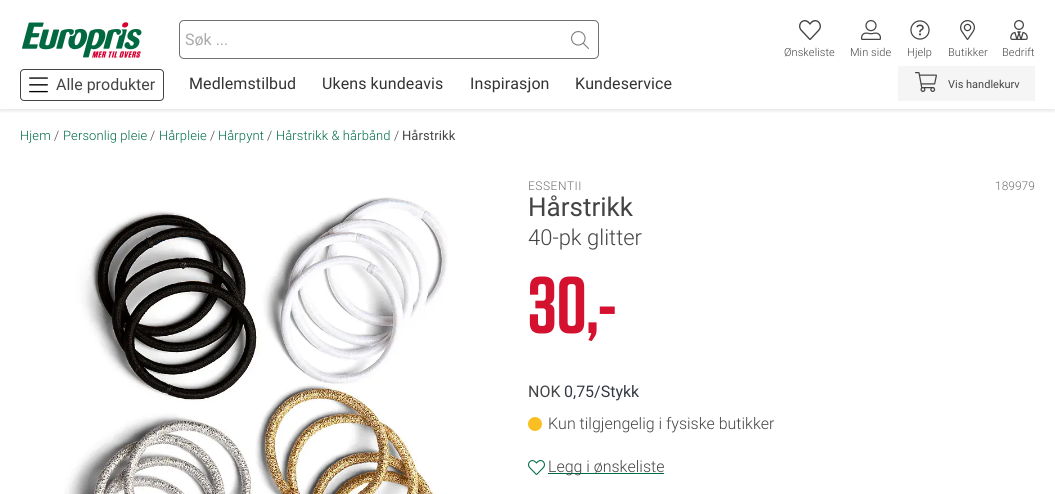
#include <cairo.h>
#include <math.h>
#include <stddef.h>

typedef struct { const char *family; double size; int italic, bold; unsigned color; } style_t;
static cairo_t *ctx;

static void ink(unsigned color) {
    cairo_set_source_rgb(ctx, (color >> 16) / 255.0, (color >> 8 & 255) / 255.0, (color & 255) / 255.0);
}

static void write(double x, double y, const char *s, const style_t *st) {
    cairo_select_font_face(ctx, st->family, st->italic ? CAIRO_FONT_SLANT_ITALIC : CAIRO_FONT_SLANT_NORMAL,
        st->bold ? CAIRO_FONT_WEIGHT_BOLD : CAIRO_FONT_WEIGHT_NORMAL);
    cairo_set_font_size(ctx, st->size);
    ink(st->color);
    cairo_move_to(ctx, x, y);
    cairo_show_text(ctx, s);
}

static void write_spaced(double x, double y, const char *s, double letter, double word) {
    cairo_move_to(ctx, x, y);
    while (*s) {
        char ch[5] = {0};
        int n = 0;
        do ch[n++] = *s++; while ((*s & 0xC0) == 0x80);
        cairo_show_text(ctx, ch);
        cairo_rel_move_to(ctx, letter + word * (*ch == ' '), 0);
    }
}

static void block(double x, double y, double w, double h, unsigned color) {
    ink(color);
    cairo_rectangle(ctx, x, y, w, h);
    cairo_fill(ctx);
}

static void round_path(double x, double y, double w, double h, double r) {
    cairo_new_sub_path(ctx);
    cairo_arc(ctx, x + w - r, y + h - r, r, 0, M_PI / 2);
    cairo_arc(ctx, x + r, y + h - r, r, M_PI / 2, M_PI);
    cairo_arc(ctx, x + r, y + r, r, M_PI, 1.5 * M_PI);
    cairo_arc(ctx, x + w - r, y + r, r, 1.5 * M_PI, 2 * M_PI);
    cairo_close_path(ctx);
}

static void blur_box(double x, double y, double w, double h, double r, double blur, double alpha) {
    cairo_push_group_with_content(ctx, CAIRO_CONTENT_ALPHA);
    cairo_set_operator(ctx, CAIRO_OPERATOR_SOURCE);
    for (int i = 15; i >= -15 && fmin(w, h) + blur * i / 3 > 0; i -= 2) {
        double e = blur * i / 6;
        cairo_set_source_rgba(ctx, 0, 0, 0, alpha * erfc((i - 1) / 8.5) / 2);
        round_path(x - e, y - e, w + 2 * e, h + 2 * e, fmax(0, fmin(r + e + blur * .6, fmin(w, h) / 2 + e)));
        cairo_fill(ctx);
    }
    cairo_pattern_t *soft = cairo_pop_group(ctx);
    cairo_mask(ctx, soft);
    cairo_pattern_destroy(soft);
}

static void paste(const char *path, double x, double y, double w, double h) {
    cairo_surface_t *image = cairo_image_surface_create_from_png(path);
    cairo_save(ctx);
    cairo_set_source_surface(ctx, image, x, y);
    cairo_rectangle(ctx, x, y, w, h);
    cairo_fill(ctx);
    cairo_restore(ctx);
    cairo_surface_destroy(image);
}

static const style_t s1 = {"Roboto", 16, 0, 0, 0xaaaaaa};
static const style_t s2 = {"Roboto", 16, 0, 0, 0x444444};
static const style_t s3 = {"Roboto", 11, 0, 0, 0x444444};
static const style_t s4 = {"Roboto Light", 12, 0, 0, 0x707070};
static const style_t s5 = {"Roboto", 26, 0, 0, 0x444444};
static const style_t s6 = {"Roboto Light", 22, 0, 0, 0x444444};
static const style_t s7 = {"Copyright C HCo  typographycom", 80, 0, 0, 0xd51130};
static const style_t s8 = {"Roboto", 16, 0, 0, 0x343844};
static const style_t s9 = {"Roboto Light", 16, 0, 0, 0x444444};

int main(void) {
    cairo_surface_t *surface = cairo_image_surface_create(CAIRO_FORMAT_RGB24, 1055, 494);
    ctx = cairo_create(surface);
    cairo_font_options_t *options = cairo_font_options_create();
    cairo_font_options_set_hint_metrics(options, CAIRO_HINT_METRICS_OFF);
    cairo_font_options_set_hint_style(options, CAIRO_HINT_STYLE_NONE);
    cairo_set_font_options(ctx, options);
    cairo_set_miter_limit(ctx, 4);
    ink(0xffffff);
    cairo_paint(ctx);
    cairo_save(ctx);
    cairo_rectangle(ctx, 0, 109, 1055, 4);
    cairo_clip(ctx);
    ink(0x000000);
    blur_box(0, 2, 1055, 109, 0, 2, 0.1);
    cairo_restore(ctx);
    paste("pic1.png", 22, 22, 120, 36);
    round_path(179.5, 20.5, 419, 38, 4.5);
    ink(0x707070);
    cairo_set_line_width(ctx, 1);
    cairo_stroke(ctx);
    write(185, 45, "Søk ...", &s1);
    paste("pic2.png", 571, 31, 18, 18);
    round_path(20.5, 69.5, 143, 31, 3.5);
    ink(0x444444);
    cairo_stroke(ctx);
    paste("pic3.png", 29, 77, 19, 16);
    write(56, 90, "Alle produkter", &s2);
    ink(0x333333);
    write_spaced(189, 89, "Medlemstilbud", 0.1, 0);
    write_spaced(322, 89, "Ukens kundeavis", 0.1, 0);
    write_spaced(470, 89, "Inspirasjon", 0.1, 0);
    write_spaced(575, 89, "Kundeservice", 0.1, 0);
    paste("pic4.png", 799, 20, 22, 20);
    cairo_select_font_face(ctx, "Roboto Light", CAIRO_FONT_SLANT_NORMAL, CAIRO_FONT_WEIGHT_NORMAL);
    cairo_set_font_size(ctx, 11);
    ink(0x444444);
    write_spaced(784, 56, "Ønskeliste", 0.1, 0);
    paste("pic5.png", 861, 20, 20, 20);
    write_spaced(850, 56, "Min side", 0.1, 0);
    paste("pic6.png", 910, 20, 20, 20);
    write_spaced(907, 56, "Hjelp", 0.1, 0);
    paste("pic7.png", 960, 20, 15, 20);
    write_spaced(948, 56, "Butikker", 0.1, 0);
    paste("pic8.png", 1010, 20, 18, 20);
    write_spaced(1002, 56, "Bedrift", 0.1, 0);
    block(898, 66, 137, 35, 0xf5f5f5);
    paste("pic9.png", 915, 72, 22, 20);
    write(948, 88, "Vis handlekurv", &s3);
    cairo_select_font_face(ctx, "Roboto Light", CAIRO_FONT_SLANT_NORMAL, CAIRO_FONT_WEIGHT_NORMAL);
    cairo_set_font_size(ctx, 13);
    ink(0x006c43);
    write_spaced(20, 140, "Hjem", 0.1, 0);
    ink(0x444444);
    write_spaced(54, 140, "/", 0.1, 0);
    ink(0x006c43);
    write_spaced(63, 140, "Personlig pleie", 0.1, 0);
    ink(0x444444);
    write_spaced(150, 140, "/", 0.1, 0);
    ink(0x006c43);
    write_spaced(159, 140, "Hårpleie", 0.1, 0);
    ink(0x444444);
    write_spaced(210, 140, "/", 0.1, 0);
    ink(0x006c43);
    write_spaced(218, 140, "Hårpynt", 0.1, 0);
    ink(0x444444);
    write_spaced(267, 140, "/", 0.1, 0);
    ink(0x006c43);
    write_spaced(276, 140, "Hårstrikk & hårbånd", 0.1, 0);
    ink(0x444444);
    write_spaced(394, 140, "/", 0.1, 0);
    cairo_select_font_face(ctx, "Roboto", CAIRO_FONT_SLANT_NORMAL, CAIRO_FONT_WEIGHT_NORMAL);
    write_spaced(402, 140, "Hårstrikk", 0.1, 0);
    paste("pic10.png", 64, 197, 384, 297);
    cairo_select_font_face(ctx, "Roboto Light", CAIRO_FONT_SLANT_NORMAL, CAIRO_FONT_WEIGHT_NORMAL);
    cairo_set_font_size(ctx, 12);
    ink(0x707070);
    write_spaced(528, 190, "ESSENTII", 0.5, 0);
    write(995, 190, "189979", &s4);
    write(528, 216, "Hårstrikk", &s5);
    write(528, 245, "40-pk glitter", &s6);
    write(528, 333, "30,-", &s7);
    write(528, 397, "NOK", &s2);
    write(564, 397, "0,75/Stykk", &s8);
    ink(0xfac023);
    cairo_new_path(ctx);
    cairo_arc(ctx, 535, 424, 7, 0, 2 * M_PI);
    cairo_fill(ctx);
    write(548, 429, "Kun tilgjengelig i fysiske butikker", &s9);
    paste("pic11.png", 528, 460, 17, 15);
    block(548, 473, 116, 1, 0x006c43);
    write(548, 472, "Legg i ønskeliste", &s9);
    cairo_surface_write_to_png(surface, "screenshot.png");
    cairo_font_options_destroy(options);
    cairo_destroy(ctx);
    cairo_surface_destroy(surface);
    return 0;
}
